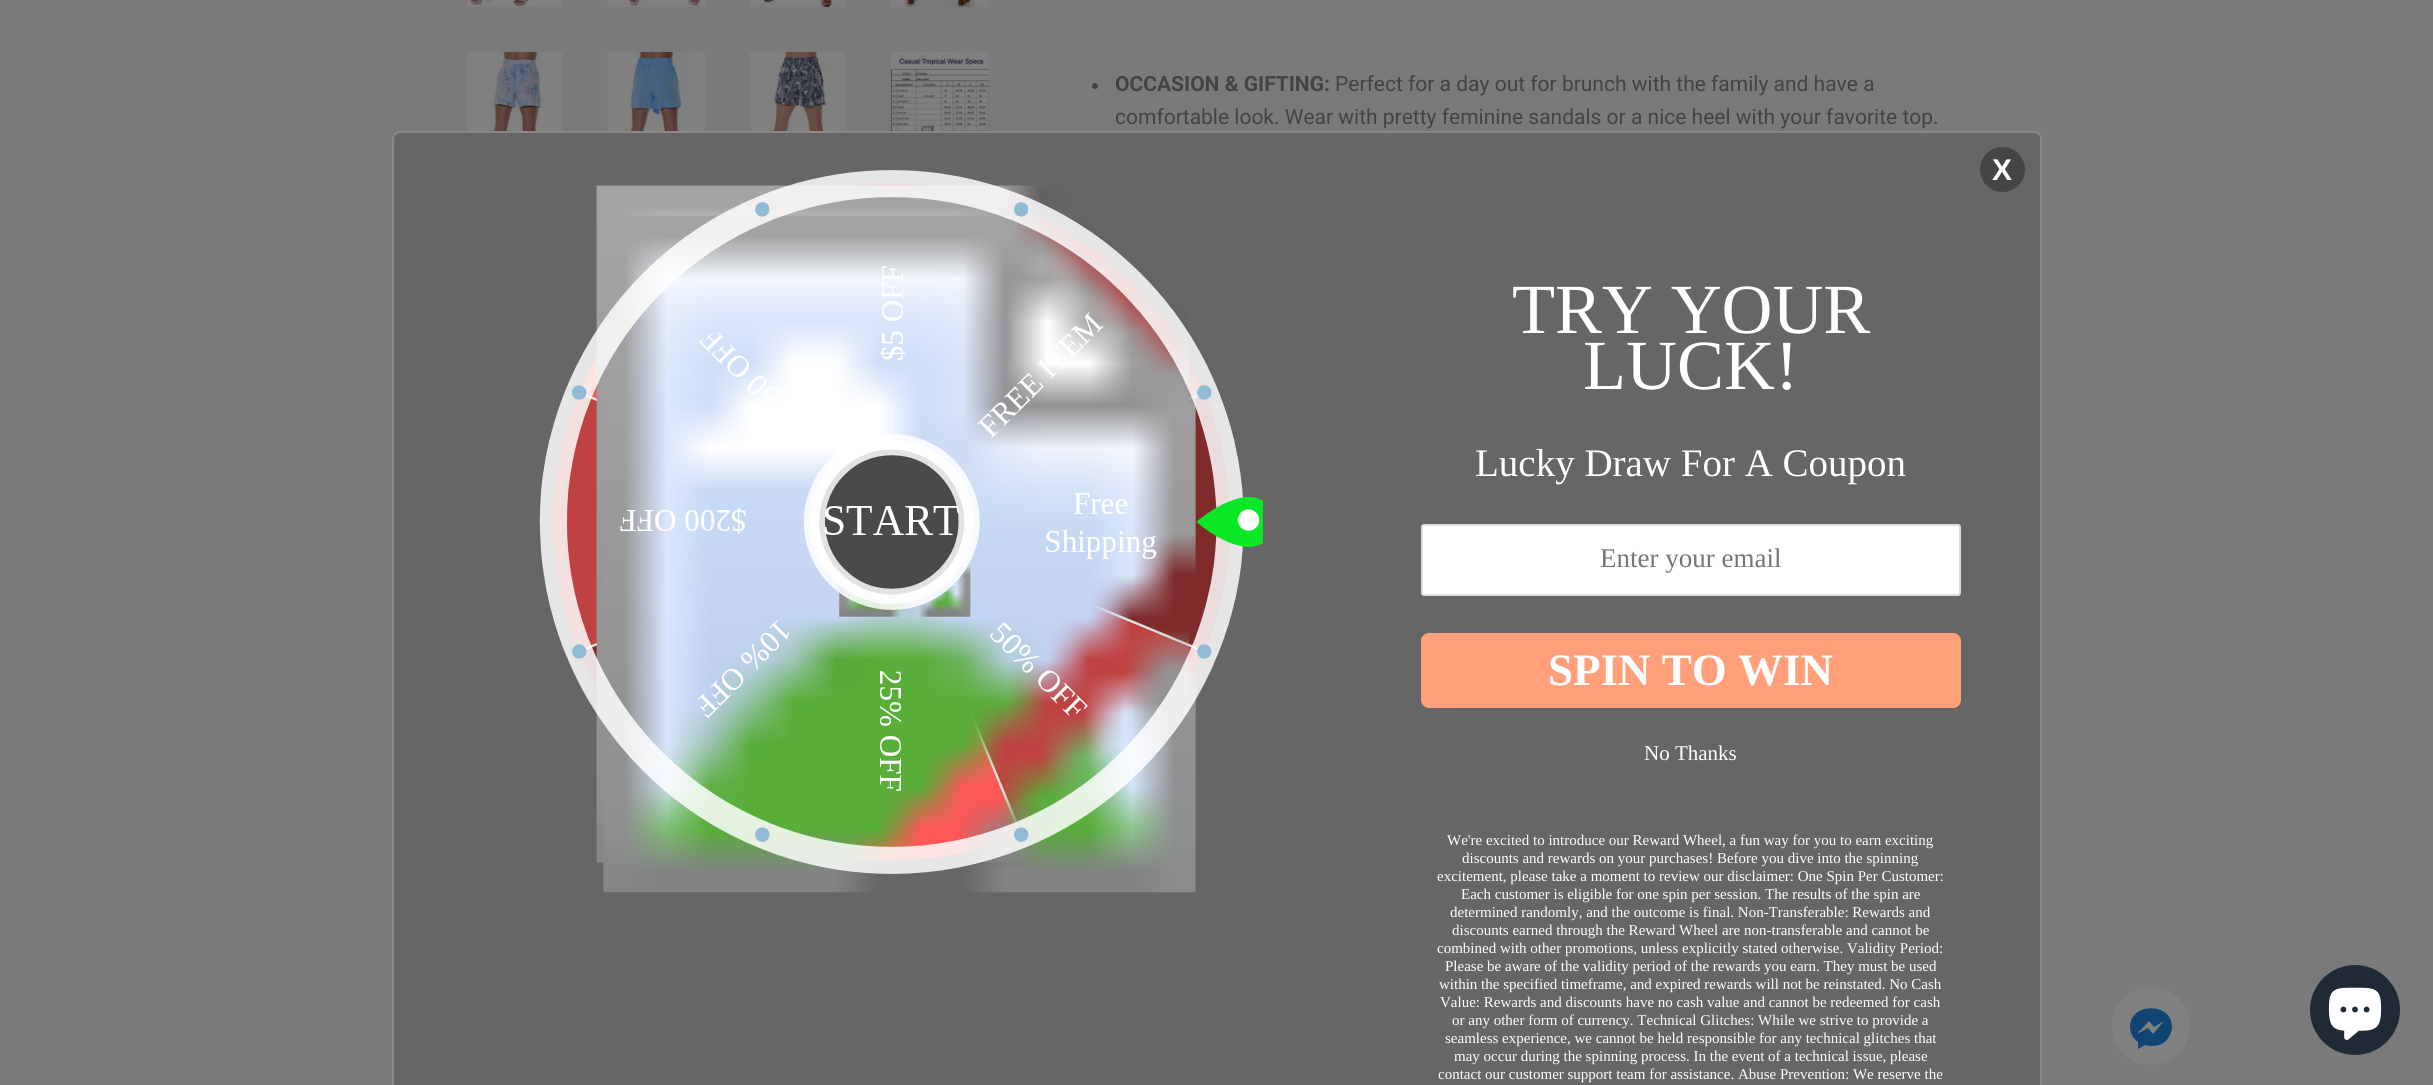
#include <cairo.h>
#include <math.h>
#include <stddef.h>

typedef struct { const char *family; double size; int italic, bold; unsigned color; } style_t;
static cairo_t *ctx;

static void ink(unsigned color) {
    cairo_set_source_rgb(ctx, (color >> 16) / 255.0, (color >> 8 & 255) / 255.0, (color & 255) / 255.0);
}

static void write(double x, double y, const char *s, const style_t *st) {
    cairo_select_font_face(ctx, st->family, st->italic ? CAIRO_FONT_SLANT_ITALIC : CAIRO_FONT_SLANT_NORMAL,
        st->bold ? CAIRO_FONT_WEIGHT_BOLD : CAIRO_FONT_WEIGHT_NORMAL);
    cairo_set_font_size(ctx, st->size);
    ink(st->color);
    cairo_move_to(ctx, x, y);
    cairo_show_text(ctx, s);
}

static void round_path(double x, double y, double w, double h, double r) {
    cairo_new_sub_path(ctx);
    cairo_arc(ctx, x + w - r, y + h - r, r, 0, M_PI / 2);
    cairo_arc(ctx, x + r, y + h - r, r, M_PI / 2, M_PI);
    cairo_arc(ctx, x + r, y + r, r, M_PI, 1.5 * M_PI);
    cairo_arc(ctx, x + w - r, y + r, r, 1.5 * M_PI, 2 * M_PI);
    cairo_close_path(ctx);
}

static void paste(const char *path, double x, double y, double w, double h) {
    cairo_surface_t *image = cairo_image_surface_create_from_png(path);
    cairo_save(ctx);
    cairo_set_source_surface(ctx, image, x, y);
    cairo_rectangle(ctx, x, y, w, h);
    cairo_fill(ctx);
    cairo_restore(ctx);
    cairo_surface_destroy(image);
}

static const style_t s1 = {"Roboto", 21, 0, 1, 0x434343};
static const style_t s2 = {"Roboto", 21, 0, 0, 0x434343};
static const style_t s3 = {"Liberation Sans", 30, 0, 1, 0xffffff};
static const style_t s4 = {"Liberation Serif", 70.5, 0, 0, 0xffffff};
static const style_t s5 = {"Liberation Serif", 39, 0, 0, 0xffffff};
static const style_t s6 = {"Liberation Serif", 27, 0, 0, 0x757575};
static const style_t s7 = {"Liberation Serif", 45, 0, 1, 0xffffff};
static const style_t s8 = {"Liberation Serif", 21, 0, 0, 0xffffff};
static const style_t s9 = {"Liberation Serif", 15, 0, 0, 0xffffff};

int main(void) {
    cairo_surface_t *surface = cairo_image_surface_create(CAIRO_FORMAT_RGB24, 2433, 1085);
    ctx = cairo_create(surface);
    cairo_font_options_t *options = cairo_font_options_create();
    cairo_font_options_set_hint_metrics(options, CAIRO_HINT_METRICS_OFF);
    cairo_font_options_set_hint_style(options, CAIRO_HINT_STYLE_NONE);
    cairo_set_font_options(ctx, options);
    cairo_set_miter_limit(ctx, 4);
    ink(0x7a7a7a);
    cairo_paint(ctx);
    paste("pic1.png", 466, 0, 97, 7);
    paste("pic2.png", 607, 0, 98, 7);
    paste("pic3.png", 750, 0, 96, 7);
    paste("pic4.png", 891, 0, 98, 7);
    paste("pic5.png", 466, 52, 97, 79);
    paste("pic6.png", 607, 52, 98, 79);
    paste("pic7.png", 750, 52, 96, 79);
    paste("pic8.png", 891, 52, 98, 79);
    ink(0x434343);
    cairo_arc(ctx, 1095, 86, 3, 0, 2 * M_PI);
    cairo_fill(ctx);
    write(1115, 91, "OCCASION & GIFTING:", &s1);
    write(1335, 91, "Perfect for a day out for brunch with the family and have a", &s2);
    write(1115, 124, "comfortable look. Wear with pretty feminine sandals or a nice heel with your favorite top.", &s2);
    ink(0x666666);
    cairo_new_path(ctx);
    cairo_move_to(ctx, 400, 131);
    cairo_line_to(ctx, 2034, 131);
    cairo_curve_to(ctx, 2038.5, 131, 2042, 134.5, 2042, 139);
    cairo_line_to(ctx, 2042, 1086);
    cairo_line_to(ctx, 392, 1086);
    cairo_line_to(ctx, 392, 139);
    cairo_curve_to(ctx, 392, 134.5, 395.5, 131, 400, 131);
    cairo_close_path(ctx);
    cairo_fill(ctx);
    round_path(393, 132, 1648, 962, 7);
    ink(0x888888);
    cairo_stroke(ctx);
    ink(0x454545);
    cairo_arc(ctx, 2002.5, 169.5, 22.5, 0, 2 * M_PI);
    cairo_fill(ctx);
    write(1992, 180, "X", &s3);
    paste("pic9.png", 539, 170, 724, 723);
    write(1512, 333, "TRY YOUR", &s4);
    write(1583, 389, "LUCK!", &s4);
    write(1475, 476, "Lucky Draw For A Coupon", &s5);
    round_path(1422, 525, 538, 70, 2);
    cairo_fill_preserve(ctx);
    ink(0xdedede);
    cairo_stroke(ctx);
    write(1600, 567, "Enter your email", &s6);
    ink(0xffa07a);
    round_path(1421, 633, 540, 75, 8);
    cairo_fill(ctx);
    write(1548, 685, "SPIN TO WIN", &s7);
    write(1644, 760, "No Thanks", &s8);
    write(1447, 845, "We're excited to introduce our Reward Wheel, a fun way for you to earn exciting", &s9);
    write(1462, 863, "discounts and rewards on your purchases! Before you dive into the spinning", &s9);
    write(1437, 881, "excitement, please take a moment to review our disclaimer: One Spin Per Customer:", &s9);
    write(1461, 899, "Each customer is eligible for one spin per session. The results of the spin are", &s9);
    write(1450, 917, "determined randomly, and the outcome is final. Non-Transferable: Rewards and", &s9);
    write(1452, 935, "discounts earned through the Reward Wheel are non-transferable and cannot be", &s9);
    write(1437, 953, "combined with other promotions, unless explicitly stated otherwise. Validity Period:", &s9);
    write(1445, 971, "Please be aware of the validity period of the rewards you earn. They must be used", &s9);
    write(1439, 989, "within the specified timeframe, and expired rewards will not be reinstated. No Cash", &s9);
    write(1440, 1007, "Value: Rewards and discounts have no cash value and cannot be redeemed for cash", &s9);
    write(1452, 1025, "or any other form of currency. Technical Glitches: While we strive to provide a", &s9);
    write(1445, 1043, "seamless experience, we cannot be held responsible for any technical glitches that", &s9);
    write(1454, 1061, "may occur during the spinning process. In the event of a technical issue, please", &s9);
    write(1438, 1079, "contact our customer support team for assistance. Abuse Prevention: We reserve the", &s9);
    ink(0x808080);
    cairo_new_path(ctx);
    cairo_arc(ctx, 2151, 1026, 39, 0, 2 * M_PI);
    cairo_fill(ctx);
    ink(0x0f4473);
    cairo_set_fill_rule(ctx, CAIRO_FILL_RULE_EVEN_ODD);
    cairo_new_path(ctx);
    cairo_move_to(ctx, 2130, 1027);
    cairo_curve_to(ctx, 2130, 1002, 2172, 1002, 2172, 1027);
    cairo_curve_to(ctx, 2172, 1032, 2169, 1037, 2166, 1041);
    cairo_curve_to(ctx, 2160, 1046, 2152, 1047, 2145, 1045);
    cairo_line_to(ctx, 2138, 1049);
    cairo_line_to(ctx, 2138, 1042);
    cairo_curve_to(ctx, 2133, 1038, 2130, 1033, 2130, 1027);
    cairo_close_path(ctx);
    cairo_move_to(ctx, 2148, 1028);
    cairo_line_to(ctx, 2153, 1034);
    cairo_line_to(ctx, 2164, 1021);
    cairo_line_to(ctx, 2154, 1027);
    cairo_line_to(ctx, 2149, 1021);
    cairo_line_to(ctx, 2137, 1034);
    cairo_close_path(ctx);
    cairo_fill(ctx);
    ink(0x202a36);
    cairo_arc(ctx, 2355, 1010, 45, 0, 2 * M_PI);
    cairo_fill(ctx);
    paste("pic10.png", 2328, 987, 54, 53);
    cairo_surface_write_to_png(surface, "screenshot.png");
    cairo_font_options_destroy(options);
    cairo_destroy(ctx);
    cairo_surface_destroy(surface);
    return 0;
}
